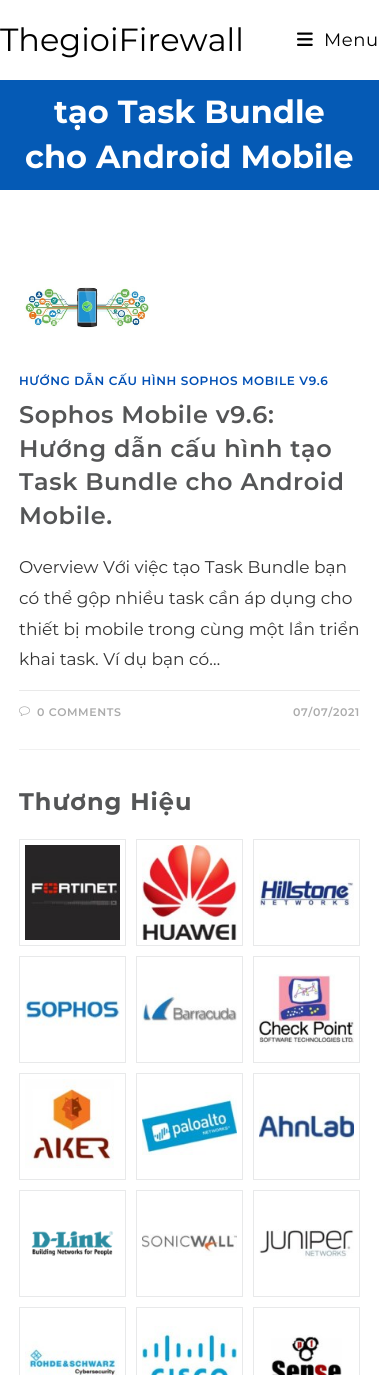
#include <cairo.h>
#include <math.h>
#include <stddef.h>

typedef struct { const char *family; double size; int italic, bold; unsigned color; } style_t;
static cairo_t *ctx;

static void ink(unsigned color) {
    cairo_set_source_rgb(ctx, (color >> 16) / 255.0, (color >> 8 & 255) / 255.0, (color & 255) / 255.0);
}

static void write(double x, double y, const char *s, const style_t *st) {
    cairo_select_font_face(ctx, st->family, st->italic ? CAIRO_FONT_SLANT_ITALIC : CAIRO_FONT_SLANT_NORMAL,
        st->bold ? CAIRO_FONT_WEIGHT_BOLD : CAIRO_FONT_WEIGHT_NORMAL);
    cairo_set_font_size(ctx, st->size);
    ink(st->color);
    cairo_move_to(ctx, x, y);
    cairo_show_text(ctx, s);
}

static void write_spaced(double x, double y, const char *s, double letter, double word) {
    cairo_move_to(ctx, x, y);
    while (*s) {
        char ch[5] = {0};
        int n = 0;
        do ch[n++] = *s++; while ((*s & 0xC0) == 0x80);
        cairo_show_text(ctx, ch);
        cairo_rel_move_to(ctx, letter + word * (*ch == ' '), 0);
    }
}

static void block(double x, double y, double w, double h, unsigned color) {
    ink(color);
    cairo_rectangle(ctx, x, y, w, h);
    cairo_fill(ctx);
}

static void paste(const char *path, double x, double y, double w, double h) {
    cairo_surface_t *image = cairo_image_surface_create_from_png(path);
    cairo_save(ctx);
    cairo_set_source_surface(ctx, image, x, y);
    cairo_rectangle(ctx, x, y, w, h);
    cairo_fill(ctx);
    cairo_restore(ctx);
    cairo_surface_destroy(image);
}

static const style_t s1 = {"Montserrat", 32, 0, 0, 0x000000};
static const style_t s2 = {"Montserrat", 32, 0, 1, 0xffffff};
static const style_t s3 = {"Montserrat", 17, 0, 0, 0x333333};

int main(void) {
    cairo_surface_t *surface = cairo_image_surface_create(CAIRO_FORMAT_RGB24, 379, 1375);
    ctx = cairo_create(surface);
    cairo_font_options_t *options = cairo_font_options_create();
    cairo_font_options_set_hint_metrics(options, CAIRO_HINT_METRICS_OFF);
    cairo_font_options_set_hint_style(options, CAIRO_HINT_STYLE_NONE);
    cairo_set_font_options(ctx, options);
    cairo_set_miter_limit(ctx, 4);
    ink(0xffffff);
    cairo_paint(ctx);
    write(0, 51, "ThegioiFirewall", &s1);
    paste("pic1.png", 297, 32, 16, 14);
    cairo_set_font_size(ctx, 18);
    write_spaced(324, 46, "Menu", 0.6, 0);
    block(0, 80, 379, 110, 0x055ab5);
    write(54, 123, "tạo Task Bundle", &s2);
    write(25, 168, "cho Android Mobile", &s2);
    block(19, 749, 341, 1, 0xf1f1f1);
    paste("pic2.png", 24, 287, 126, 41);
    cairo_select_font_face(ctx, "Montserrat SemiBold", CAIRO_FONT_SLANT_NORMAL, CAIRO_FONT_WEIGHT_NORMAL);
    cairo_set_font_size(ctx, 12);
    ink(0x004fb5);
    write_spaced(19, 385, "HƯỚNG DẪN CẤU HÌNH SOPHOS MOBILE V9.6", 0.6, 0);
    cairo_set_font_size(ctx, 24);
    ink(0x545556);
    write_spaced(19, 423, "Sophos Mobile v9.6:", 0.6, 0);
    write_spaced(19, 457, "Hướng dẫn cấu hình tạo", 0.6, 0);
    write_spaced(19, 490, "Task Bundle cho Android", 0.6, 0);
    write_spaced(19, 524, "Mobile.", 0.6, 0);
    write(19, 573, "Overview Với việc tạo Task Bundle bạn", &s3);
    write(19, 604, "có thể gộp nhiều task cần áp dụng cho", &s3);
    write(19, 635, "thiết bị mobile trong cùng một lần triển", &s3);
    write(19, 665, "khai task. Ví dụ bạn có…", &s3);
    block(19, 690, 341, 1, 0xe9e9e9);
    paste("pic3.png", 19, 706, 11, 10);
    cairo_select_font_face(ctx, "Montserrat SemiBold", CAIRO_FONT_SLANT_NORMAL, CAIRO_FONT_WEIGHT_NORMAL);
    cairo_set_font_size(ctx, 11);
    ink(0xababab);
    write_spaced(37, 716, "0 COMMENTS", 0.6, 0);
    write_spaced(293, 716, "07/07/2021", 0.6, 0);
    cairo_select_font_face(ctx, "Montserrat", CAIRO_FONT_SLANT_NORMAL, CAIRO_FONT_WEIGHT_BOLD);
    cairo_set_font_size(ctx, 24);
    ink(0x545556);
    write_spaced(19, 810, "Thương Hiệu", 1, 0);
    cairo_rectangle(ctx, 19.5, 839.5, 106, 106);
    ink(0xe8e9ea);
    cairo_set_line_width(ctx, 1);
    cairo_stroke(ctx);
    paste("pic4.png", 25, 845, 95, 95);
    cairo_rectangle(ctx, 136.5, 839.5, 106, 106);
    cairo_stroke(ctx);
    paste("pic5.png", 142, 845, 95, 95);
    cairo_rectangle(ctx, 253.5, 839.5, 106, 106);
    cairo_stroke(ctx);
    paste("pic6.png", 259, 870, 95, 39);
    cairo_rectangle(ctx, 19.5, 956.5, 106, 106);
    cairo_stroke(ctx);
    paste("pic7.png", 25, 1000, 95, 26);
    cairo_rectangle(ctx, 136.5, 956.5, 106, 106);
    cairo_stroke(ctx);
    paste("pic8.png", 142, 987, 95, 38);
    cairo_rectangle(ctx, 253.5, 956.5, 106, 106);
    cairo_stroke(ctx);
    paste("pic9.png", 259, 974, 95, 70);
    cairo_rectangle(ctx, 19.5, 1073.5, 106, 106);
    cairo_stroke(ctx);
    paste("pic10.png", 25, 1079, 89, 89);
    cairo_rectangle(ctx, 136.5, 1073.5, 106, 106);
    cairo_stroke(ctx);
    paste("pic11.png", 142, 1092, 95, 63);
    cairo_rectangle(ctx, 253.5, 1073.5, 106, 106);
    cairo_stroke(ctx);
    paste("pic12.png", 259, 1104, 95, 39);
    cairo_rectangle(ctx, 19.5, 1190.5, 106, 106);
    cairo_stroke(ctx);
    paste("pic13.png", 31, 1230, 83, 26);
    cairo_rectangle(ctx, 136.5, 1190.5, 106, 106);
    cairo_stroke(ctx);
    paste("pic14.png", 142, 1234, 95, 22);
    cairo_rectangle(ctx, 253.5, 1190.5, 106, 106);
    cairo_stroke(ctx);
    paste("pic15.png", 259, 1229, 95, 30);
    cairo_rectangle(ctx, 19.5, 1307.5, 106, 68);
    cairo_stroke(ctx);
    paste("pic16.png", 25, 1341, 94, 34);
    cairo_rectangle(ctx, 136.5, 1307.5, 106, 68);
    cairo_stroke(ctx);
    paste("pic17.png", 142, 1326, 95, 49);
    cairo_rectangle(ctx, 253.5, 1307.5, 106, 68);
    cairo_stroke(ctx);
    paste("pic18.png", 271, 1335, 71, 40);
    cairo_surface_write_to_png(surface, "screenshot.png");
    cairo_font_options_destroy(options);
    cairo_destroy(ctx);
    cairo_surface_destroy(surface);
    return 0;
}
